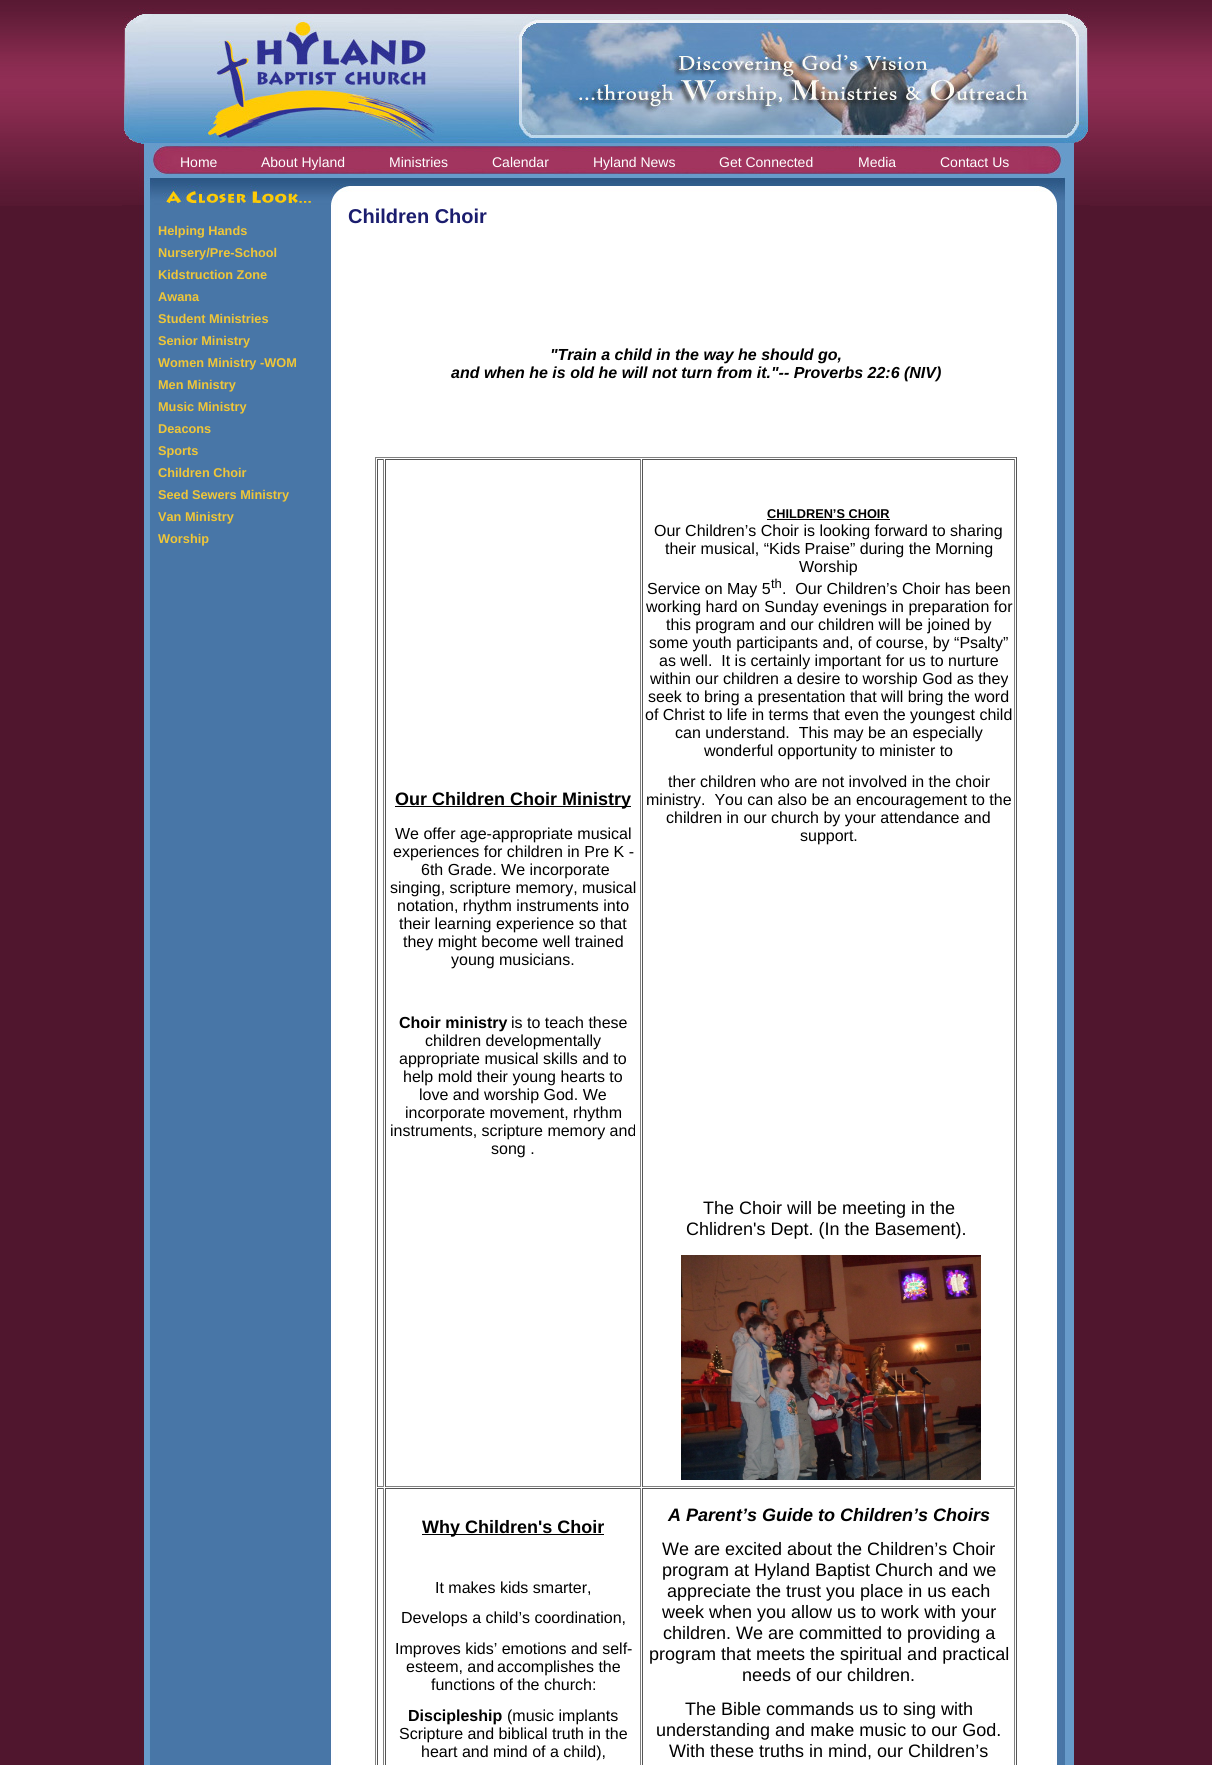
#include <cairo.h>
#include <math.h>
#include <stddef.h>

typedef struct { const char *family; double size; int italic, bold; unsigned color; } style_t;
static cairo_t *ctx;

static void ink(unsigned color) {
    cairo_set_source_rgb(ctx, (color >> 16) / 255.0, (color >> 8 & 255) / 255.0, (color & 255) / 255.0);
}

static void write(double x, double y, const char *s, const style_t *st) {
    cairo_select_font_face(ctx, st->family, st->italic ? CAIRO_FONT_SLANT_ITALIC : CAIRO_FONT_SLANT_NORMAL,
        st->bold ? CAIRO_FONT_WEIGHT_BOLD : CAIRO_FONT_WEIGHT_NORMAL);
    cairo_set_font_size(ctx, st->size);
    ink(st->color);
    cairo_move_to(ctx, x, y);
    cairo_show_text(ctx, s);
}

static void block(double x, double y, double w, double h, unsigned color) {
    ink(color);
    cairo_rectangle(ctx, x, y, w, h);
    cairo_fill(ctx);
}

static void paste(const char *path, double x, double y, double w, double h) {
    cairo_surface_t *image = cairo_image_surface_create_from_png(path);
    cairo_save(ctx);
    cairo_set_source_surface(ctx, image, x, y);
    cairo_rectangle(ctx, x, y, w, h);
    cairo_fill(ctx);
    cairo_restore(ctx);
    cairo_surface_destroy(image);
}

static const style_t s1 = {"Liberation Sans", 14, 0, 0, 0xffffff};
static const style_t s2 = {"Liberation Sans", 12.75, 0, 1, 0xefc638};
static const style_t s3 = {"Liberation Sans", 20, 0, 1, 0x1b1d6e};
static const style_t s4 = {"Liberation Sans", 16, 1, 1, 0x000000};
static const style_t s5 = {"Liberation Sans", 18, 0, 1, 0x000000};
static const style_t s6 = {"Liberation Sans", 16, 0, 0, 0x000000};
static const style_t s7 = {"Liberation Sans", 16, 0, 1, 0x000000};
static const style_t s8 = {"Liberation Sans", 12.75, 0, 1, 0x000000};
static const style_t s9 = {"Liberation Sans", 13, 0, 0, 0x000000};
static const style_t s10 = {"Liberation Sans", 18, 0, 0, 0x000000};
static const style_t s11 = {"Liberation Sans", 18, 1, 1, 0x000000};

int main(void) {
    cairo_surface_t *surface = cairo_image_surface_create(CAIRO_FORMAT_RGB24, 1212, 1765);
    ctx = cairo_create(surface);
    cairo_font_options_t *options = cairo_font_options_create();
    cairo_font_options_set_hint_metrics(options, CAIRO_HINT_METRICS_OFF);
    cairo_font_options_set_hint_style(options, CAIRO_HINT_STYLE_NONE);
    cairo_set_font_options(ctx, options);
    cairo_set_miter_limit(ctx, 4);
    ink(0x50162e);
    cairo_paint(ctx);
    paste("pic1.png", 0, 0, 1212, 206);
    paste("pic2.png", 122, 8, 968, 197);
    write(180, 167, "Home", &s1);
    write(261, 167, "About Hyland", &s1);
    write(389, 167, "Ministries", &s1);
    write(492, 167, "Calendar", &s1);
    write(593, 167, "Hyland News", &s1);
    write(719, 167, "Get Connected", &s1);
    write(858, 167, "Media", &s1);
    write(940, 167, "Contact Us", &s1);
    paste("pic3.png", 122, 205, 968, 1560);
    write(158, 235, "Helping Hands", &s2);
    write(158, 257, "Nursery/Pre-School", &s2);
    write(158, 279, "Kidstruction Zone", &s2);
    write(158, 301, "Awana", &s2);
    write(158, 323, "Student Ministries", &s2);
    write(158, 345, "Senior Ministry", &s2);
    write(158, 367, "Women Ministry -WOM", &s2);
    write(158, 389, "Men Ministry", &s2);
    write(158, 411, "Music Ministry", &s2);
    write(158, 433, "Deacons", &s2);
    write(158, 455, "Sports", &s2);
    write(158, 477, "Children Choir", &s2);
    write(158, 499, "Seed Sewers Ministry", &s2);
    write(158, 521, "Van Ministry", &s2);
    write(158, 543, "Worship", &s2);
    write(348, 223, "Children Choir", &s3);
    write(550, 360, "\"Train a child in the way he should go,", &s4);
    write(451, 378, "and when he is old he will not turn from it.\"-- Proverbs 22:6 (NIV)", &s4);
    block(375, 457, 642, 1, 0x808080);
    block(1016, 457, 1, 1308, 0x555555);
    block(375, 457, 1, 1308, 0x808080);
    block(377, 459, 7, 1, 0x555555);
    block(383, 459, 1, 1028, 0x808080);
    block(377, 1486, 7, 1, 0x808080);
    block(377, 459, 1, 1028, 0x555555);
    block(385, 459, 256, 1, 0x555555);
    block(640, 459, 1, 1028, 0x808080);
    block(385, 1486, 256, 1, 0x808080);
    block(385, 459, 1, 1028, 0x555555);
    block(395, 806, 236, 1, 0x000000);
    write(395, 805, "Our Children Choir Ministry", &s5);
    write(395, 839, "We offer age-appropriate musical", &s6);
    write(393, 857, "experiences for children in Pre K -", &s6);
    write(421, 875, "6th Grade. We incorporate", &s6);
    write(390, 893, "singing, scripture memory, musical", &s6);
    write(397, 911, "notation, rhythm instruments into", &s6);
    write(399, 929, "their learning experience so that", &s6);
    write(403, 947, "they might become well trained", &s6);
    write(451, 965, "young musicians.", &s6);
    write(399, 1028, "Choir ministry", &s7);
    write(511, 1028, "is to teach these", &s6);
    write(425, 1046, "children developmentally", &s6);
    write(399, 1064, "appropriate musical skills and to", &s6);
    write(403, 1082, "help mold their young hearts to", &s6);
    write(419, 1100, "love and worship God. We", &s6);
    write(405, 1118, "incorporate movement, rhythm", &s6);
    write(390, 1136, "instruments, scripture memory and", &s6);
    write(491, 1154, "song .", &s6);
    block(642, 459, 373, 1, 0x555555);
    block(1014, 459, 1, 1028, 0x808080);
    block(642, 1486, 373, 1, 0x808080);
    block(642, 459, 1, 1028, 0x555555);
    write(767, 518, "CHILDREN’S CHOIR", &s8);
    block(767, 519, 123, 1, 0x000000);
    write(654, 536, "Our Children’s Choir is looking forward to sharing", &s6);
    write(665, 554, "their musical, “Kids Praise” during the Morning", &s6);
    write(799, 572, "Worship", &s6);
    write(647, 594, "Service on May 5", &s6);
    write(771, 588, "th", &s9);
    write(782, 594, ".  Our Children’s Choir has been", &s6);
    write(646, 612, "working hard on Sunday evenings in preparation for", &s6);
    write(666, 630, "this program and our children will be joined by", &s6);
    write(649, 648, "some youth participants and, of course, by “Psalty”", &s6);
    write(659, 666, "as well.  It is certainly important for us to nurture", &s6);
    write(650, 684, "within our children a desire to worship God as they", &s6);
    write(648, 702, "seek to bring a presentation that will bring the word", &s6);
    write(645, 720, "of Christ to life in terms that even the youngest child", &s6);
    write(675, 738, "can understand.  This may be an especially", &s6);
    write(704, 756, "wonderful opportunity to minister to", &s6);
    write(668, 787, "ther children who are not involved in the choir", &s6);
    write(646, 805, "ministry.  You can also be an encouragement to the", &s6);
    write(666, 823, "children in our church by your attendance and", &s6);
    write(800, 841, "support.", &s6);
    write(703, 1214, "The Choir will be meeting in the", &s10);
    write(686, 1235, "Chlidren's Dept. (In the Basement).", &s10);
    paste("pic4.png", 681, 1255, 300, 225);
    block(377, 1488, 7, 1, 0x555555);
    block(383, 1488, 1, 277, 0x808080);
    block(377, 1488, 1, 277, 0x555555);
    block(385, 1488, 256, 1, 0x555555);
    block(640, 1488, 1, 277, 0x808080);
    block(385, 1488, 1, 277, 0x555555);
    block(422, 1534, 182, 1, 0x000000);
    write(422, 1533, "Why Children's Choir", &s5);
    write(435, 1593, "It makes kids smarter,", &s6);
    write(401, 1623, "Develops a child’s coordination,", &s6);
    write(395, 1654, "Improves kids’ emotions and self-", &s6);
    write(406, 1672, "esteem, and", &s6);
    write(497, 1672, "accomplishes the", &s6);
    write(431, 1690, "functions of the church:", &s6);
    write(408, 1721, "Discipleship", &s7);
    write(507, 1721, "(music implants", &s6);
    write(399, 1739, "Scripture and biblical truth in the", &s6);
    write(421, 1757, "heart and mind of a child),", &s6);
    block(642, 1488, 373, 1, 0x555555);
    block(1014, 1488, 1, 277, 0x808080);
    block(642, 1488, 1, 277, 0x555555);
    write(668, 1521, "A Parent’s Guide to Children’s Choirs", &s11);
    write(662, 1555, "We are excited about the Children’s Choir", &s10);
    write(662, 1576, "program at Hyland Baptist Church and we", &s10);
    write(667, 1597, "appreciate the trust you place in us each", &s10);
    write(662, 1618, "week when you allow us to work with your", &s10);
    write(663, 1639, "children. We are committed to providing a", &s10);
    write(649, 1660, "program that meets the spiritual and practical", &s10);
    write(742, 1681, "needs of our children.", &s10);
    write(685, 1715, "The Bible commands us to sing with", &s10);
    write(656, 1736, "understanding and make music to our God.", &s10);
    write(669, 1757, "With these truths in mind, our Children’s", &s10);
    cairo_surface_write_to_png(surface, "screenshot.png");
    cairo_font_options_destroy(options);
    cairo_destroy(ctx);
    cairo_surface_destroy(surface);
    return 0;
}
